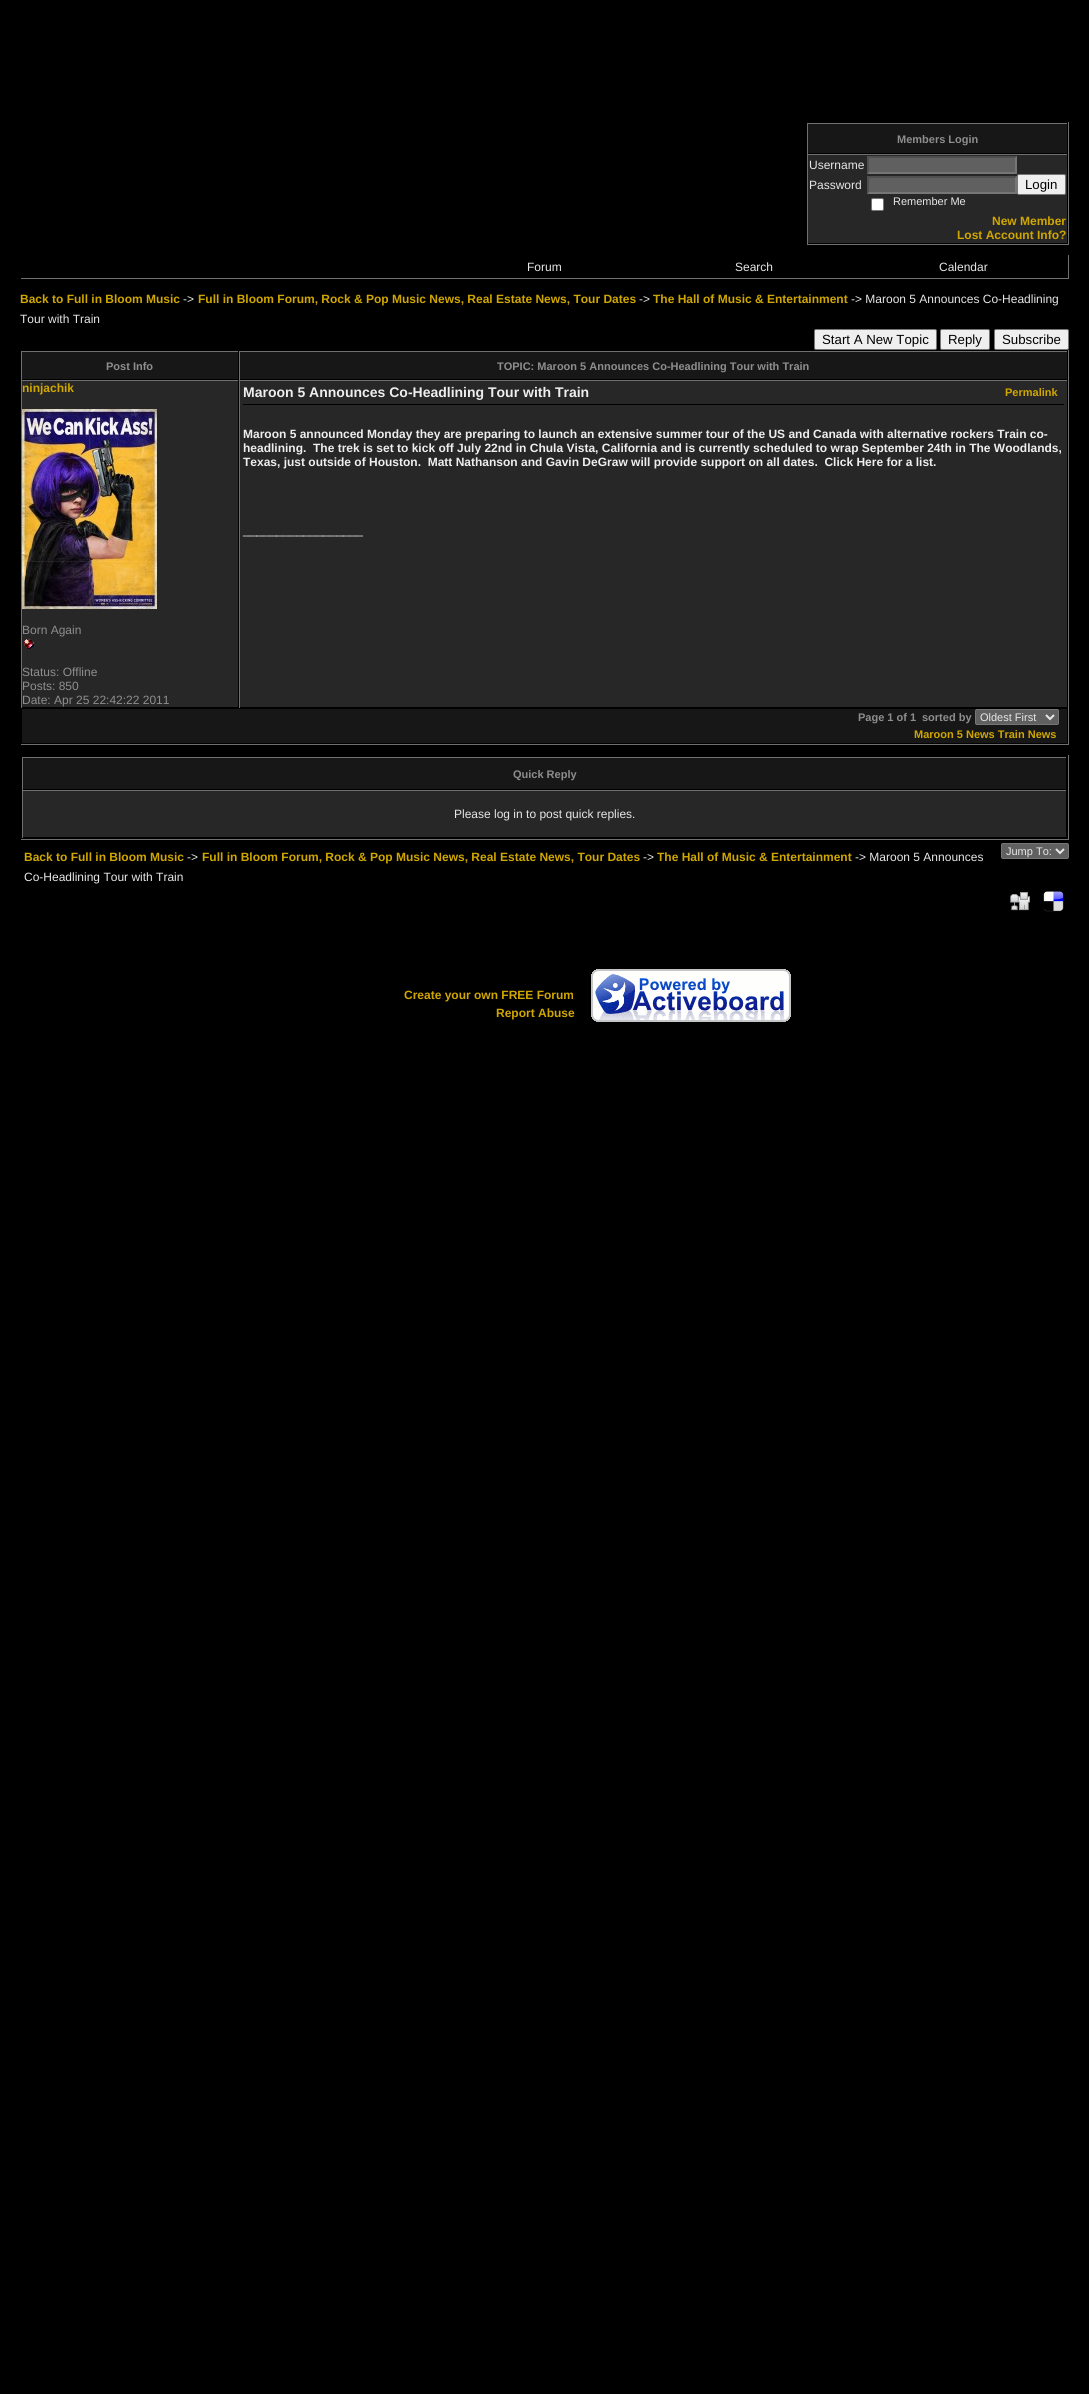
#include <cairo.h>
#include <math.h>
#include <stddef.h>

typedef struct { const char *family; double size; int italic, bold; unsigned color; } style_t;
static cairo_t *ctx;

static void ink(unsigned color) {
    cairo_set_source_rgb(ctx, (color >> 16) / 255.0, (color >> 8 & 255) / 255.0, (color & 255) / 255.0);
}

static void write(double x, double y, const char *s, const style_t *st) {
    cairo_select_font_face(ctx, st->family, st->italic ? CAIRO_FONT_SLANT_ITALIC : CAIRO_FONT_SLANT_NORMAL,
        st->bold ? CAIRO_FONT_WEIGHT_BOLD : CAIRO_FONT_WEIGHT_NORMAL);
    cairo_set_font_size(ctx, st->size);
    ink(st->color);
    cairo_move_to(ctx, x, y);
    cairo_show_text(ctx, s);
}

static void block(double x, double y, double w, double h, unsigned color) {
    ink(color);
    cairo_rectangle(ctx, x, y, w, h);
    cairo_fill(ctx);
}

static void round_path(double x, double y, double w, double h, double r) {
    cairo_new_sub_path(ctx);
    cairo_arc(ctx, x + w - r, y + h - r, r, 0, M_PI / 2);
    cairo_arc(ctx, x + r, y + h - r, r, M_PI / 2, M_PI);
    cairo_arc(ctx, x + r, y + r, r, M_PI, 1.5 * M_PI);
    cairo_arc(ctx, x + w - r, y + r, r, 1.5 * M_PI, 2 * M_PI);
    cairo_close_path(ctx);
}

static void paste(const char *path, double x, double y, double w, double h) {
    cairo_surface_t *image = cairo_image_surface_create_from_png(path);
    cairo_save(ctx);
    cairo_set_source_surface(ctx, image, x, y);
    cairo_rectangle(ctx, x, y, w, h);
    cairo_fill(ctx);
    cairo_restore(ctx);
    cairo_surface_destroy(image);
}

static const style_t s1 = {"Liberation Sans", 11, 0, 1, 0x8e8e8e};
static const style_t s2 = {"Liberation Sans", 12, 0, 0, 0xe7e7e7};
static const style_t s3 = {"Liberation Sans", 13.25, 0, 0, 0x000000};
static const style_t s4 = {"Liberation Sans", 11, 0, 0, 0xe7e7e7};
static const style_t s5 = {"Liberation Sans", 12, 0, 1, 0xd0a700};
static const style_t s6 = {"Liberation Sans", 12, 0, 0, 0x8e8e8e};
static const style_t s7 = {"Liberation Sans", 14, 0, 1, 0xeeeeee};
static const style_t s8 = {"Liberation Sans", 11, 0, 1, 0xd0a700};
static const style_t s9 = {"Liberation Sans", 12, 0, 1, 0xeeeeee};

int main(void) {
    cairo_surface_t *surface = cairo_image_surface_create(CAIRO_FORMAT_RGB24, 1089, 2394);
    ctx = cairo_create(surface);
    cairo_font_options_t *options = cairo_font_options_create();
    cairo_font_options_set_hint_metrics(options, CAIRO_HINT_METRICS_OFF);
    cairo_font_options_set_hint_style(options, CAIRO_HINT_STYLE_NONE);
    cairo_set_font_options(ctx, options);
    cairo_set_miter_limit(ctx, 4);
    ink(0x000000);
    cairo_paint(ctx);
    block(1068, 122, 1, 123, 0x707070);
    block(806, 244, 263, 1, 0x707070);
    block(806, 244, 1, 1, 0x000000);
    block(808, 124, 259, 29, 0x171717);
    block(807, 123, 261, 1, 0x707070);
    block(1067, 123, 1, 1, 0x000000);
    block(807, 123, 1, 31, 0x707070);
    write(897, 143, "Members Login", &s1);
    block(808, 155, 259, 88, 0x272727);
    block(807, 154, 261, 1, 0x707070);
    block(1067, 154, 1, 1, 0x000000);
    block(807, 154, 1, 90, 0x707070);
    write(809, 169, "Username", &s2);
    block(867, 156, 150, 18, 0x606060);
    ink(0x4f4f4f);
    cairo_new_path(ctx);
    cairo_move_to(ctx, 867, 156);
    cairo_line_to(ctx, 1017, 156);
    cairo_line_to(ctx, 1015, 158);
    cairo_line_to(ctx, 869, 158);
    cairo_close_path(ctx);
    cairo_fill(ctx);
    ink(0x767676);
    cairo_new_path(ctx);
    cairo_move_to(ctx, 1017, 156);
    cairo_line_to(ctx, 1017, 174);
    cairo_line_to(ctx, 1015, 172);
    cairo_line_to(ctx, 1015, 158);
    cairo_close_path(ctx);
    cairo_fill(ctx);
    cairo_new_path(ctx);
    cairo_move_to(ctx, 1017, 174);
    cairo_line_to(ctx, 867, 174);
    cairo_line_to(ctx, 869, 172);
    cairo_line_to(ctx, 1015, 172);
    cairo_close_path(ctx);
    cairo_fill(ctx);
    ink(0x4f4f4f);
    cairo_new_path(ctx);
    cairo_move_to(ctx, 867, 174);
    cairo_line_to(ctx, 867, 156);
    cairo_line_to(ctx, 869, 158);
    cairo_line_to(ctx, 869, 172);
    cairo_close_path(ctx);
    cairo_fill(ctx);
    write(809, 189, "Password", &s2);
    block(867, 176, 150, 18, 0x606060);
    ink(0x4f4f4f);
    cairo_new_path(ctx);
    cairo_move_to(ctx, 867, 176);
    cairo_line_to(ctx, 1017, 176);
    cairo_line_to(ctx, 1015, 178);
    cairo_line_to(ctx, 869, 178);
    cairo_close_path(ctx);
    cairo_fill(ctx);
    ink(0x767676);
    cairo_new_path(ctx);
    cairo_move_to(ctx, 1017, 176);
    cairo_line_to(ctx, 1017, 194);
    cairo_line_to(ctx, 1015, 192);
    cairo_line_to(ctx, 1015, 178);
    cairo_close_path(ctx);
    cairo_fill(ctx);
    cairo_new_path(ctx);
    cairo_move_to(ctx, 1017, 194);
    cairo_line_to(ctx, 867, 194);
    cairo_line_to(ctx, 869, 192);
    cairo_line_to(ctx, 1015, 192);
    cairo_close_path(ctx);
    cairo_fill(ctx);
    ink(0x4f4f4f);
    cairo_new_path(ctx);
    cairo_move_to(ctx, 867, 194);
    cairo_line_to(ctx, 867, 176);
    cairo_line_to(ctx, 869, 178);
    cairo_line_to(ctx, 869, 192);
    cairo_close_path(ctx);
    cairo_fill(ctx);
    ink(0xefefef);
    round_path(1017.5, 174.5, 48, 20, 1.5);
    cairo_fill_preserve(ctx);
    ink(0x767676);
    cairo_set_line_width(ctx, 1);
    cairo_stroke(ctx);
    write(1025, 189, "Login", &s3);
    ink(0xffffff);
    round_path(871.5, 198.5, 12, 12, 1.5);
    cairo_fill_preserve(ctx);
    ink(0x767676);
    cairo_stroke(ctx);
    write(893, 205, "Remember Me", &s4);
    write(992, 225, "New Member", &s5);
    write(957, 239, "Lost Account Info?", &s5);
    block(1068, 255, 1, 24, 0x707070);
    block(20, 278, 1049, 1, 0x707070);
    block(20, 278, 1, 1, 0x000000);
    write(527, 271, "Forum", &s2);
    write(735, 271, "Search", &s2);
    write(939, 271, "Calendar", &s2);
    write(20, 303, "Back to Full in Bloom Music", &s5);
    write(183, 303, "->", &s2);
    write(198, 303, "Full in Bloom Forum, Rock & Pop Music News, Real Estate News, Tour Dates", &s5);
    write(639, 303, "->", &s2);
    write(653, 303, "The Hall of Music & Entertainment", &s5);
    write(851, 303, "-> Maroon 5 Announces Co-Headlining", &s2);
    write(20, 323, "Tour with Train", &s2);
    ink(0xefefef);
    round_path(814.5, 329.5, 122, 20, 1.5);
    cairo_fill_preserve(ctx);
    ink(0x767676);
    cairo_stroke(ctx);
    write(822, 344, "Start A New Topic", &s3);
    ink(0xefefef);
    round_path(940.5, 329.5, 49, 20, 1.5);
    cairo_fill_preserve(ctx);
    ink(0x767676);
    cairo_stroke(ctx);
    write(948, 344, "Reply", &s3);
    ink(0xefefef);
    round_path(994.5, 329.5, 74, 20, 1.5);
    cairo_fill_preserve(ctx);
    ink(0x767676);
    cairo_stroke(ctx);
    write(1002, 344, "Subscribe", &s3);
    block(1068, 350, 1, 395, 0x707070);
    block(20, 744, 1049, 1, 0x707070);
    block(20, 744, 1, 1, 0x000000);
    block(22, 352, 216, 27, 0x171717);
    block(21, 351, 1047, 1, 0x707070);
    block(238, 351, 1, 1, 0x000000);
    block(21, 351, 1, 29, 0x707070);
    write(106, 370, "Post Info", &s1);
    block(240, 352, 827, 27, 0x171717);
    block(1067, 351, 1, 1, 0x000000);
    block(239, 351, 1, 29, 0x707070);
    write(497, 370, "TOPIC: Maroon 5 Announces Co-Headlining Tour with Train", &s1);
    block(22, 381, 216, 326, 0x272727);
    block(21, 380, 1047, 1, 0x707070);
    block(238, 380, 1, 1, 0x000000);
    block(21, 380, 1, 328, 0x707070);
    write(22, 392, "ninjachik", &s5);
    paste("pic1.png", 22, 409, 135, 200);
    write(22, 634, "Born Again", &s6);
    paste("pic2.png", 24, 639, 10, 10);
    write(22, 676, "Status: Offline", &s6);
    write(22, 690, "Posts: 850", &s6);
    write(22, 704, "Date: Apr 25 22:42:22 2011", &s6);
    block(240, 381, 827, 326, 0x272727);
    block(1067, 380, 1, 1, 0x000000);
    block(239, 380, 1, 328, 0x707070);
    write(243, 397, "Maroon 5 Announces Co-Headlining Tour with Train", &s7);
    write(1005, 396, "Permalink", &s8);
    block(243, 404, 821, 1, 0x000000);
    write(243, 438, "Maroon 5 announced Monday they are preparing to launch an extensive summer tour of the US and Canada with alternative rockers Train co-", &s9);
    write(243, 452, "headlining.  The trek is set to kick off July 22nd in Chula Vista, California and is currently scheduled to wrap September 24th in The Woodlands,", &s9);
    write(243, 466, "Texas, just outside of Houston.  Matt Nathanson and Gavin DeGraw will provide support on all dates.  Click Here for a list.", &s9);
    write(243, 534, "__________________", &s2);
    block(22, 709, 1045, 34, 0x171717);
    write(858, 721, "Page 1 of 1", &s1);
    write(922, 721, "sorted by", &s1);
    ink(0x606060);
    round_path(975.5, 709.5, 83, 15, 1.5);
    cairo_fill_preserve(ctx);
    ink(0x767676);
    cairo_stroke(ctx);
    cairo_new_path(ctx);
    cairo_move_to(ctx, 1046, 715);
    cairo_line_to(ctx, 1050, 719);
    cairo_line_to(ctx, 1054, 715);
    ink(0xe7e7e7);
    cairo_set_line_width(ctx, 2);
    cairo_stroke(ctx);
    write(980, 721, "Oldest First", &s4);
    write(914, 738, "Maroon 5 News Train News", &s8);
    block(1068, 755, 1, 85, 0x707070);
    block(20, 839, 1049, 1, 0x707070);
    block(20, 839, 1, 1, 0x000000);
    block(23, 758, 1043, 31, 0x171717);
    block(22, 757, 1045, 1, 0x707070);
    block(1066, 757, 1, 1, 0x000000);
    block(22, 757, 1, 33, 0x707070);
    write(513, 778, "Quick Reply", &s1);
    block(23, 791, 1043, 46, 0x272727);
    block(22, 790, 1045, 1, 0x707070);
    block(1066, 790, 1, 1, 0x000000);
    block(22, 790, 1, 48, 0x707070);
    write(454, 818, "Please log in to post quick replies.", &s2);
    write(24, 861, "Back to Full in Bloom Music", &s5);
    write(187, 861, "->", &s2);
    write(202, 861, "Full in Bloom Forum, Rock & Pop Music News, Real Estate News, Tour Dates", &s5);
    write(643, 861, "->", &s2);
    write(657, 861, "The Hall of Music & Entertainment", &s5);
    write(855, 861, "-> Maroon 5 Announces", &s2);
    write(24, 881, "Co-Headlining Tour with Train", &s2);
    ink(0x606060);
    round_path(1001.5, 843.5, 67, 15, 1.5);
    cairo_fill_preserve(ctx);
    ink(0x767676);
    cairo_set_line_width(ctx, 1);
    cairo_stroke(ctx);
    cairo_new_path(ctx);
    cairo_move_to(ctx, 1056, 849);
    cairo_line_to(ctx, 1060, 853);
    cairo_line_to(ctx, 1064, 849);
    ink(0xe7e7e7);
    cairo_set_line_width(ctx, 2);
    cairo_stroke(ctx);
    write(1006, 855, "Jump To:", &s4);
    paste("pic3.png", 1010, 892, 20, 19);
    paste("pic4.png", 1043, 891, 21, 21);
    write(404, 999, "Create your own FREE Forum", &s5);
    write(496, 1017, "Report Abuse", &s5);
    paste("pic5.png", 591, 969, 200, 53);
    cairo_surface_write_to_png(surface, "screenshot.png");
    cairo_font_options_destroy(options);
    cairo_destroy(ctx);
    cairo_surface_destroy(surface);
    return 0;
}
